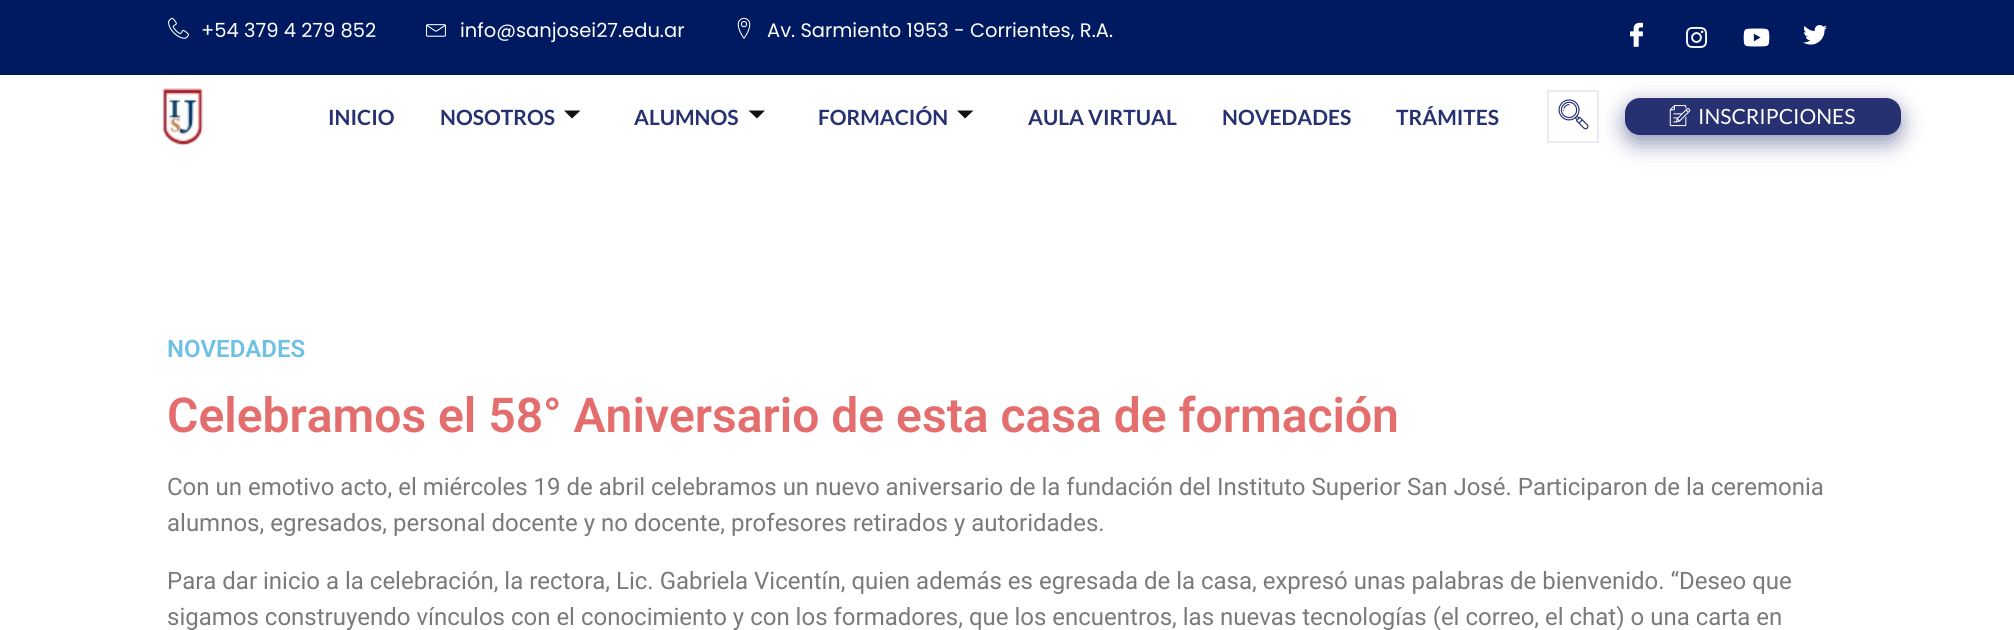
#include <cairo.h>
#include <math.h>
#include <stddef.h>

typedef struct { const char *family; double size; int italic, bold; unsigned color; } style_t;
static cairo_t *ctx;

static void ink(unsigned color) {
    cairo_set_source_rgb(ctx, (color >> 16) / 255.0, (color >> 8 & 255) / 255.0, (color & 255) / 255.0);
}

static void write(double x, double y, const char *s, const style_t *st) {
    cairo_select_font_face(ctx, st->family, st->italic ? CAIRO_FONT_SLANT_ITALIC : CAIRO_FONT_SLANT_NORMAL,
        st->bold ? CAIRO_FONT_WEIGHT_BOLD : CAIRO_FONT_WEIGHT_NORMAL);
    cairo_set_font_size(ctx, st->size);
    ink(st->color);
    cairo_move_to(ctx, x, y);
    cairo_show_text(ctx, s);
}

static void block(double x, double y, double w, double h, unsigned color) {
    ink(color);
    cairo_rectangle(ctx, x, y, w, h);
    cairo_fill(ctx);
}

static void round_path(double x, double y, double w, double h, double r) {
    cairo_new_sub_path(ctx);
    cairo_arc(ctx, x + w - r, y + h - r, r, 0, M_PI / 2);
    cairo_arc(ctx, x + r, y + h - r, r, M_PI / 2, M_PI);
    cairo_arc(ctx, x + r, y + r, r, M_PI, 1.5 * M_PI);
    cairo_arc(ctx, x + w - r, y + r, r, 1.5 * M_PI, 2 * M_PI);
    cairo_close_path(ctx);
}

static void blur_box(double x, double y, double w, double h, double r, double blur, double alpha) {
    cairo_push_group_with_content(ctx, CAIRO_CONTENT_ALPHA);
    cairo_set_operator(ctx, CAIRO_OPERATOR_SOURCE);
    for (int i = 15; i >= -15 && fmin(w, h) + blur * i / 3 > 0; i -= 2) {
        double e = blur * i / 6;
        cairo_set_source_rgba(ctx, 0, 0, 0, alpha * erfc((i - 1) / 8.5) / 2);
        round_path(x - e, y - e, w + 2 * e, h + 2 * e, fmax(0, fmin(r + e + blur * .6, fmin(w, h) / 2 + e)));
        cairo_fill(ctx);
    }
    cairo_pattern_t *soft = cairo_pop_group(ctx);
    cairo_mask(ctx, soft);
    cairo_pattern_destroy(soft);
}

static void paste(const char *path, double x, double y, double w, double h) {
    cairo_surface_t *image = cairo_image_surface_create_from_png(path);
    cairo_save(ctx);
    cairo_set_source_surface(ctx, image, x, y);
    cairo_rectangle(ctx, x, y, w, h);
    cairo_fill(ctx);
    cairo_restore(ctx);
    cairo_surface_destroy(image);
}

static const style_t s1 = {"Poppins", 19.5, 0, 0, 0xffffff};
static const style_t s2 = {"Lato", 21, 0, 1, 0x273171};
static const style_t s3 = {"Lato", 21, 0, 0, 0xffffff};
static const style_t s4 = {"Roboto SemiBold", 24, 0, 0, 0x6ec1e4};
static const style_t s5 = {"Roboto SemiBold", 48, 0, 0, 0xe46e6e};
static const style_t s6 = {"Roboto", 24, 0, 0, 0x7a7a7a};

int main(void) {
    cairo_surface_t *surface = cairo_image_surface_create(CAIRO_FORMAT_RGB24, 2014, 630);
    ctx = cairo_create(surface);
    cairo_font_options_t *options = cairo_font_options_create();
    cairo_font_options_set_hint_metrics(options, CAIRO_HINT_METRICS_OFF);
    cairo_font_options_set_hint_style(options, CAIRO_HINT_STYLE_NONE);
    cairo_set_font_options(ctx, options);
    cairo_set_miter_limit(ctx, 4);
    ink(0xffffff);
    cairo_paint(ctx);
    block(0, 0, 2014, 75, 0x001a62);
    paste("pic1.png", 168, 17, 21, 22);
    write(201, 37, "+54 379 4 279 852", &s1);
    paste("pic2.png", 426, 24, 20, 13);
    write(460, 37, "info@sanjosei27.edu.ar", &s1);
    paste("pic3.png", 737, 17, 14, 22);
    write(767, 37, "Av. Sarmiento 1953 - Corrientes, R.A.", &s1);
    paste("pic4.png", 1630, 22, 13, 25);
    paste("pic5.png", 1686, 26, 22, 22);
    paste("pic6.png", 1743, 28, 27, 19);
    paste("pic7.png", 1803, 25, 24, 20);
    paste("pic8.png", 163, 88, 40, 58);
    write(328, 125, "INICIO", &s2);
    write(440, 125, "NOSOTROS", &s2);
    ink(0x101010);
    cairo_new_path(ctx);
    cairo_move_to(ctx, 564, 110.5);
    cairo_line_to(ctx, 580.5, 110.5);
    cairo_line_to(ctx, 572, 118.5);
    cairo_close_path(ctx);
    cairo_fill(ctx);
    write(634, 125, "ALUMNOS", &s2);
    ink(0x101010);
    cairo_new_path(ctx);
    cairo_move_to(ctx, 748.5, 110.5);
    cairo_line_to(ctx, 765, 110.5);
    cairo_line_to(ctx, 757, 118.5);
    cairo_close_path(ctx);
    cairo_fill(ctx);
    write(818, 125, "FORMACIÓN", &s2);
    ink(0x101010);
    cairo_new_path(ctx);
    cairo_move_to(ctx, 957, 110.5);
    cairo_line_to(ctx, 973.5, 110.5);
    cairo_line_to(ctx, 965, 118.5);
    cairo_close_path(ctx);
    cairo_fill(ctx);
    write(1028, 125, "AULA VIRTUAL", &s2);
    write(1222, 125, "NOVEDADES", &s2);
    write(1396, 125, "TRÁMITES", &s2);
    cairo_rectangle(ctx, 1548, 91, 50, 51);
    ink(0xeaebf1);
    cairo_stroke(ctx);
    paste("pic9.png", 1558, 99, 31, 31);
    ink(0x273070);
    blur_box(1625, 105, 276, 38, 15, 11, 0.51);
    ink(0x273171);
    round_path(1625, 98, 276, 37, 15);
    cairo_fill(ctx);
    paste("pic10.png", 1669, 105, 22, 22);
    write(1698, 124, "INSCRIPCIONES", &s3);
    write(167, 357, "NOVEDADES", &s4);
    write(167, 432, "Celebramos el 58° Aniversario de esta casa de formación", &s5);
    write(167, 495, "Con un emotivo acto, el miércoles 19 de abril celebramos un nuevo aniversario de la fundación del Instituto Superior San José. Participaron de la ceremonia", &s6);
    write(167, 531, "alumnos, egresados, personal docente y no docente, profesores retirados y autoridades.", &s6);
    write(167, 589, "Para dar inicio a la celebración, la rectora, Lic. Gabriela Vicentín, quien además es egresada de la casa, expresó unas palabras de bienvenido. “Deseo que", &s6);
    write(167, 625, "sigamos construyendo vínculos con el conocimiento y con los formadores, que los encuentros, las nuevas tecnologías (el correo, el chat) o una carta en", &s6);
    cairo_surface_write_to_png(surface, "screenshot.png");
    cairo_font_options_destroy(options);
    cairo_destroy(ctx);
    cairo_surface_destroy(surface);
    return 0;
}
